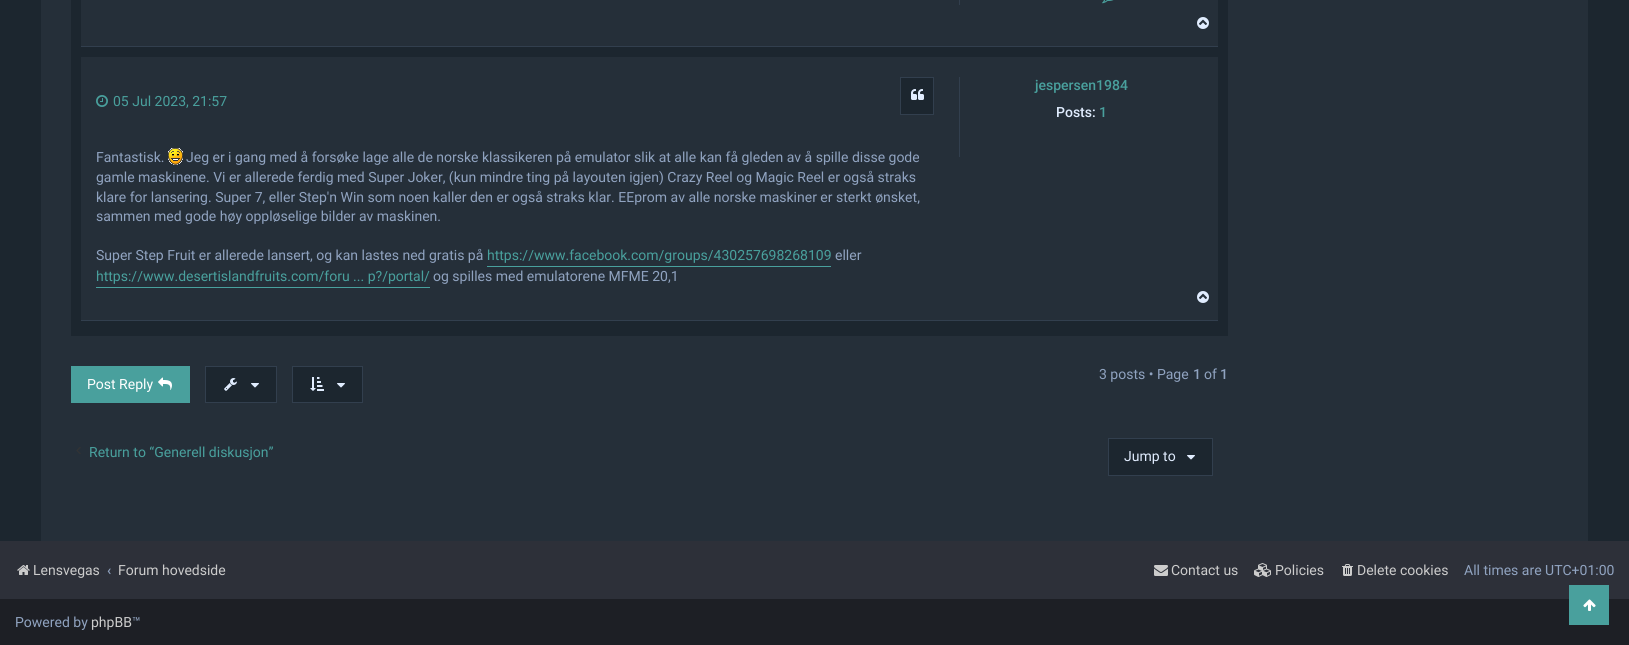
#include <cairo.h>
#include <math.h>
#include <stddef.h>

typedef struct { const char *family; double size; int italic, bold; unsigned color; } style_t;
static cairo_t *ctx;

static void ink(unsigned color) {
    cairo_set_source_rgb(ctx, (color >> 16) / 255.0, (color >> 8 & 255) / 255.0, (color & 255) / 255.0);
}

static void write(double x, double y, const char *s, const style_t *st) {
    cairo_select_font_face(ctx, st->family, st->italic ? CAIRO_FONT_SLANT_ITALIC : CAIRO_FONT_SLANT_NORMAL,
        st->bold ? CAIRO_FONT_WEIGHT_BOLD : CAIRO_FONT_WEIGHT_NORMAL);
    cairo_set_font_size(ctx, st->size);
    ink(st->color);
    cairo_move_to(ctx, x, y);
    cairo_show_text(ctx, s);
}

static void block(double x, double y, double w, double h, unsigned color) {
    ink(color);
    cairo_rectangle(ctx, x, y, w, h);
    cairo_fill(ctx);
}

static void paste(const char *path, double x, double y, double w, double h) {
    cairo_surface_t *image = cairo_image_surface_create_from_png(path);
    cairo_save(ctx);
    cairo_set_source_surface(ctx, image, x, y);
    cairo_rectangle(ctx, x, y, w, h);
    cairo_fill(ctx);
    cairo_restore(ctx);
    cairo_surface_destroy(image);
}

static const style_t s1 = {"Roboto", 14, 0, 0, 0x49a09d};
static const style_t s2 = {"Roboto", 14, 0, 0, 0x90a3c0};
static const style_t s3 = {"Roboto Medium", 14, 0, 0, 0x49a09d};
static const style_t s4 = {"Roboto Medium", 14, 0, 0, 0xe1edff};
static const style_t s5 = {"Roboto Medium", 14, 0, 0, 0x90a3c0};
static const style_t s6 = {"Roboto", 14, 0, 0, 0xffffff};
static const style_t s7 = {"Roboto", 14, 0, 0, 0xe1edff};
static const style_t s8 = {"Roboto", 14, 0, 0, 0xcccccc};

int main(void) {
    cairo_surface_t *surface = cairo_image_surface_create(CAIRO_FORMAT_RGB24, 1629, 645);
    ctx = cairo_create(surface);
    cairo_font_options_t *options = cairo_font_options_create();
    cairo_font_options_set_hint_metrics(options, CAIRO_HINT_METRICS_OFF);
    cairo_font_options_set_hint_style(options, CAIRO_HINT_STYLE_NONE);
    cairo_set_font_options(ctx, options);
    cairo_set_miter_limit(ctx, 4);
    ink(0x1c262f);
    cairo_paint(ctx);
    block(41, 0, 1547, 541, 0x252f39);
    block(71, 0, 1157, 336, 0x1c262f);
    block(81, 0, 1137, 46, 0x252f39);
    block(81, 46, 1137, 1, 0x323f4e);
    block(959, 0, 1, 5, 0x323f4e);
    paste("pic1.png", 1102, 0, 12, 4);
    paste("pic2.png", 1197, 17, 12, 12);
    block(81, 57, 1137, 263, 0x252f39);
    block(81, 320, 1137, 1, 0x323f4e);
    paste("pic3.png", 96, 95, 12, 12);
    write(113, 106, "05 Jul 2023, 21:57", &s1);
    ink(0x1c262f);
    cairo_rectangle(ctx, 900.5, 77.5, 33, 37);
    cairo_fill_preserve(ctx);
    ink(0x323f4e);
    cairo_set_line_width(ctx, 1);
    cairo_stroke(ctx);
    paste("pic4.png", 911, 89, 13, 11);
    write(96, 162, "Fantastisk.", &s2);
    paste("pic5.png", 168, 148, 15, 17);
    write(186, 162, "Jeg er i gang med å forsøke lage alle de norske klassikeren på emulator slik at alle kan få gleden av å spille disse gode", &s2);
    write(96, 182, "gamle maskinene. Vi er allerede ferdig med Super Joker, (kun mindre ting på layouten igjen) Crazy Reel og Magic Reel er også straks", &s2);
    write(96, 202, "klare for lansering. Super 7, eller Step'n Win som noen kaller den er også straks klar. EEprom av alle norske maskiner er sterkt ønsket,", &s2);
    write(96, 221, "sammen med gode høy oppløselige bilder av maskinen.", &s2);
    write(96, 260, "Super Step Fruit er allerede lansert, og kan lastes ned gratis på", &s2);
    block(487, 266, 344, 1, 0x49a09d);
    write(487, 260, "https://www.facebook.com/groups/430257698268109", &s1);
    write(835, 260, "eller", &s2);
    block(96, 287, 334, 1, 0x49a09d);
    write(96, 281, "https://www.desertislandfruits.com/foru ... p?/portal/", &s1);
    write(433, 281, "og spilles med emulatorene MFME 20,1", &s2);
    block(959, 77, 1, 80, 0x323f4e);
    write(1035, 90, "jespersen1984", &s3);
    write(1056, 117, "Posts:", &s4);
    write(1099, 117, "1", &s3);
    paste("pic2.png", 1197, 291, 12, 12);
    ink(0x1c262f);
    cairo_rectangle(ctx, 205.5, 366.5, 71, 36);
    cairo_fill_preserve(ctx);
    ink(0x323f4e);
    cairo_stroke(ctx);
    paste("pic6.png", 224, 378, 13, 13);
    paste("pic7.png", 251, 383, 8, 5);
    ink(0x1c262f);
    cairo_rectangle(ctx, 292.5, 366.5, 70, 36);
    cairo_fill_preserve(ctx);
    ink(0x323f4e);
    cairo_stroke(ctx);
    paste("pic8.png", 310, 377, 14, 14);
    paste("pic7.png", 337, 383, 8, 5);
    write(1099, 379, "3 posts • Page", &s2);
    write(1193, 379, "1", &s5);
    write(1204, 379, "of", &s2);
    write(1220, 379, "1", &s5);
    block(71, 366, 119, 37, 0x49a09d);
    write(87, 389, "Post Reply", &s6);
    paste("pic9.png", 158, 377, 14, 13);
    paste("pic10.png", 76, 447, 5, 7);
    write(89, 457, "Return to “Generell diskusjon”", &s1);
    ink(0x1c262f);
    cairo_rectangle(ctx, 1108.5, 438.5, 104, 37);
    cairo_fill_preserve(ctx);
    ink(0x323f4e);
    cairo_stroke(ctx);
    write(1124, 461, "Jump to", &s7);
    paste("pic7.png", 1187, 455, 8, 5);
    block(0, 541, 1629, 58, 0x2d3039);
    paste("pic11.png", 17, 565, 13, 10);
    write(33, 575, "Lensvegas", &s8);
    write(107, 575, "‹", &s5);
    write(118, 575, "Forum hovedside", &s8);
    paste("pic12.png", 1154, 565, 14, 11);
    write(1171, 575, "Contact us", &s8);
    paste("pic13.png", 1254, 563, 17, 14);
    write(1275, 575, "Policies", &s8);
    paste("pic14.png", 1342, 564, 11, 12);
    write(1357, 575, "Delete cookies", &s8);
    write(1464, 575, "All times are UTC+01:00", &s2);
    block(0, 599, 1629, 46, 0x1d1f25);
    write(15, 627, "Powered by", &s2);
    write(91, 627, "phpBB", &s8);
    write(132, 627, "™", &s2);
    block(1569, 585, 40, 40, 0x49a09d);
    paste("pic15.png", 1583, 599, 13, 12);
    cairo_surface_write_to_png(surface, "screenshot.png");
    cairo_font_options_destroy(options);
    cairo_destroy(ctx);
    cairo_surface_destroy(surface);
    return 0;
}
